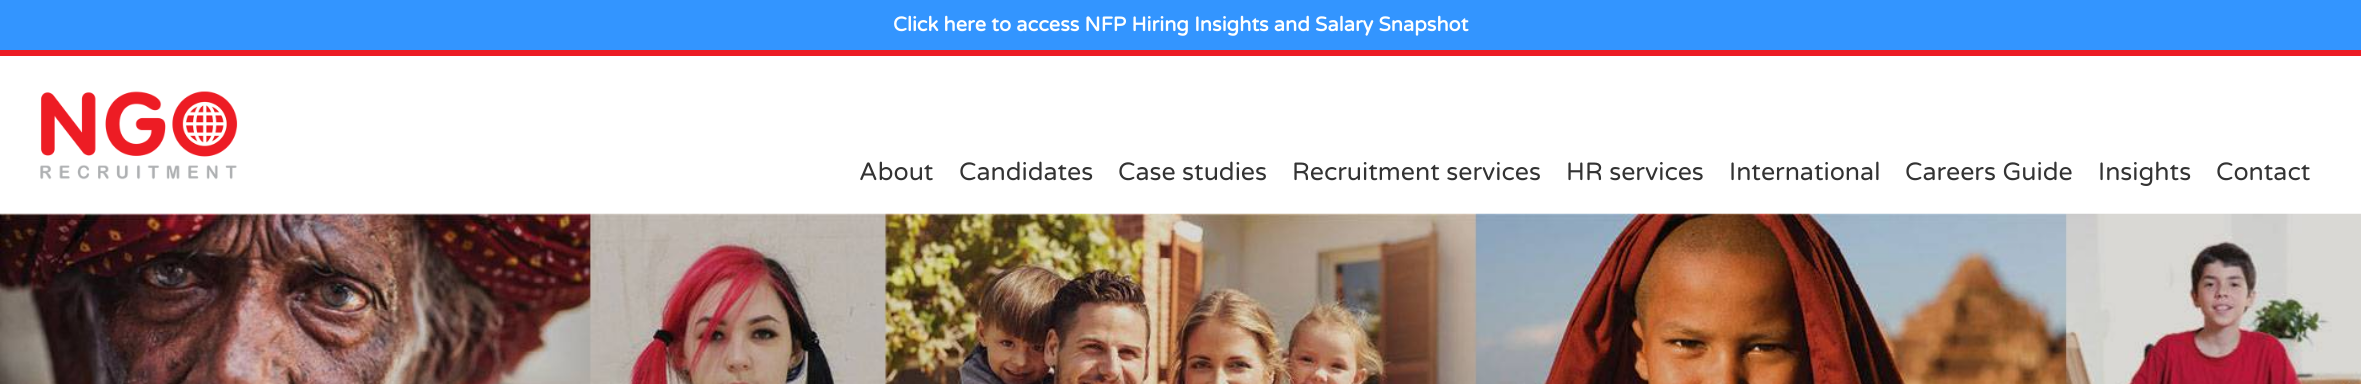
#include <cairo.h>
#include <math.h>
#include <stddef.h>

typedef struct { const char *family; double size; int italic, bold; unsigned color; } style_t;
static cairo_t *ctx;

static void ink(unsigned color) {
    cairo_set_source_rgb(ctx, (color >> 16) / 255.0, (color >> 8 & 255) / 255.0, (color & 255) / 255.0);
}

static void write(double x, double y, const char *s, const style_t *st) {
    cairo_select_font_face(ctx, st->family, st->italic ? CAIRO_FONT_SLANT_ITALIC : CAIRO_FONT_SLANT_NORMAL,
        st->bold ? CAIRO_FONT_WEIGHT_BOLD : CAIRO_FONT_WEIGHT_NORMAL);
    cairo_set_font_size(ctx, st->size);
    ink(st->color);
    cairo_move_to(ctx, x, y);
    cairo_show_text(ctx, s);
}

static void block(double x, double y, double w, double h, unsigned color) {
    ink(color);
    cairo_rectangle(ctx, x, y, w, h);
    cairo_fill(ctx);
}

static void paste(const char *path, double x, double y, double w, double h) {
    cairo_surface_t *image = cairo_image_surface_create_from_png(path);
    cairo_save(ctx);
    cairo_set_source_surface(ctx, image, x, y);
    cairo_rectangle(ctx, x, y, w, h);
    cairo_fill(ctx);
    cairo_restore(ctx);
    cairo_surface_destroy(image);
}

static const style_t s1 = {"Varela Round", 20, 0, 1, 0xffffff};
static const style_t s2 = {"Varela Round", 25, 0, 0, 0x333333};

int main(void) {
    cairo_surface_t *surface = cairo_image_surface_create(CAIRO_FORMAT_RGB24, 2361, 384);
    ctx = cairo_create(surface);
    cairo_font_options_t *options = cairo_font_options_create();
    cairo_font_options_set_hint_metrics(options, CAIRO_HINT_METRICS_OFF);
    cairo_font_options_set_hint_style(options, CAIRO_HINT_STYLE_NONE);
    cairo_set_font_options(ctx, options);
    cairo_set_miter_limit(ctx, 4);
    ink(0xffffff);
    cairo_paint(ctx);
    block(0, 0, 2361, 50, 0x3395ff);
    write(893, 31, "Click here to access NFP Hiring Insights and Salary Snapshot", &s1);
    block(0, 50, 2361, 6, 0xec1c24);
    paste("pic1.png", 40, 91, 198, 89);
    write(859, 180, "About", &s2);
    write(959, 180, "Candidates", &s2);
    write(1118, 180, "Case studies", &s2);
    write(1292, 180, "Recruitment services", &s2);
    write(1566, 180, "HR services", &s2);
    write(1729, 180, "International", &s2);
    write(1905, 180, "Careers Guide", &s2);
    write(2098, 180, "Insights", &s2);
    write(2216, 180, "Contact", &s2);
    paste("pic2.png", 0, 213, 2361, 171);
    cairo_surface_write_to_png(surface, "screenshot.png");
    cairo_font_options_destroy(options);
    cairo_destroy(ctx);
    cairo_surface_destroy(surface);
    return 0;
}
